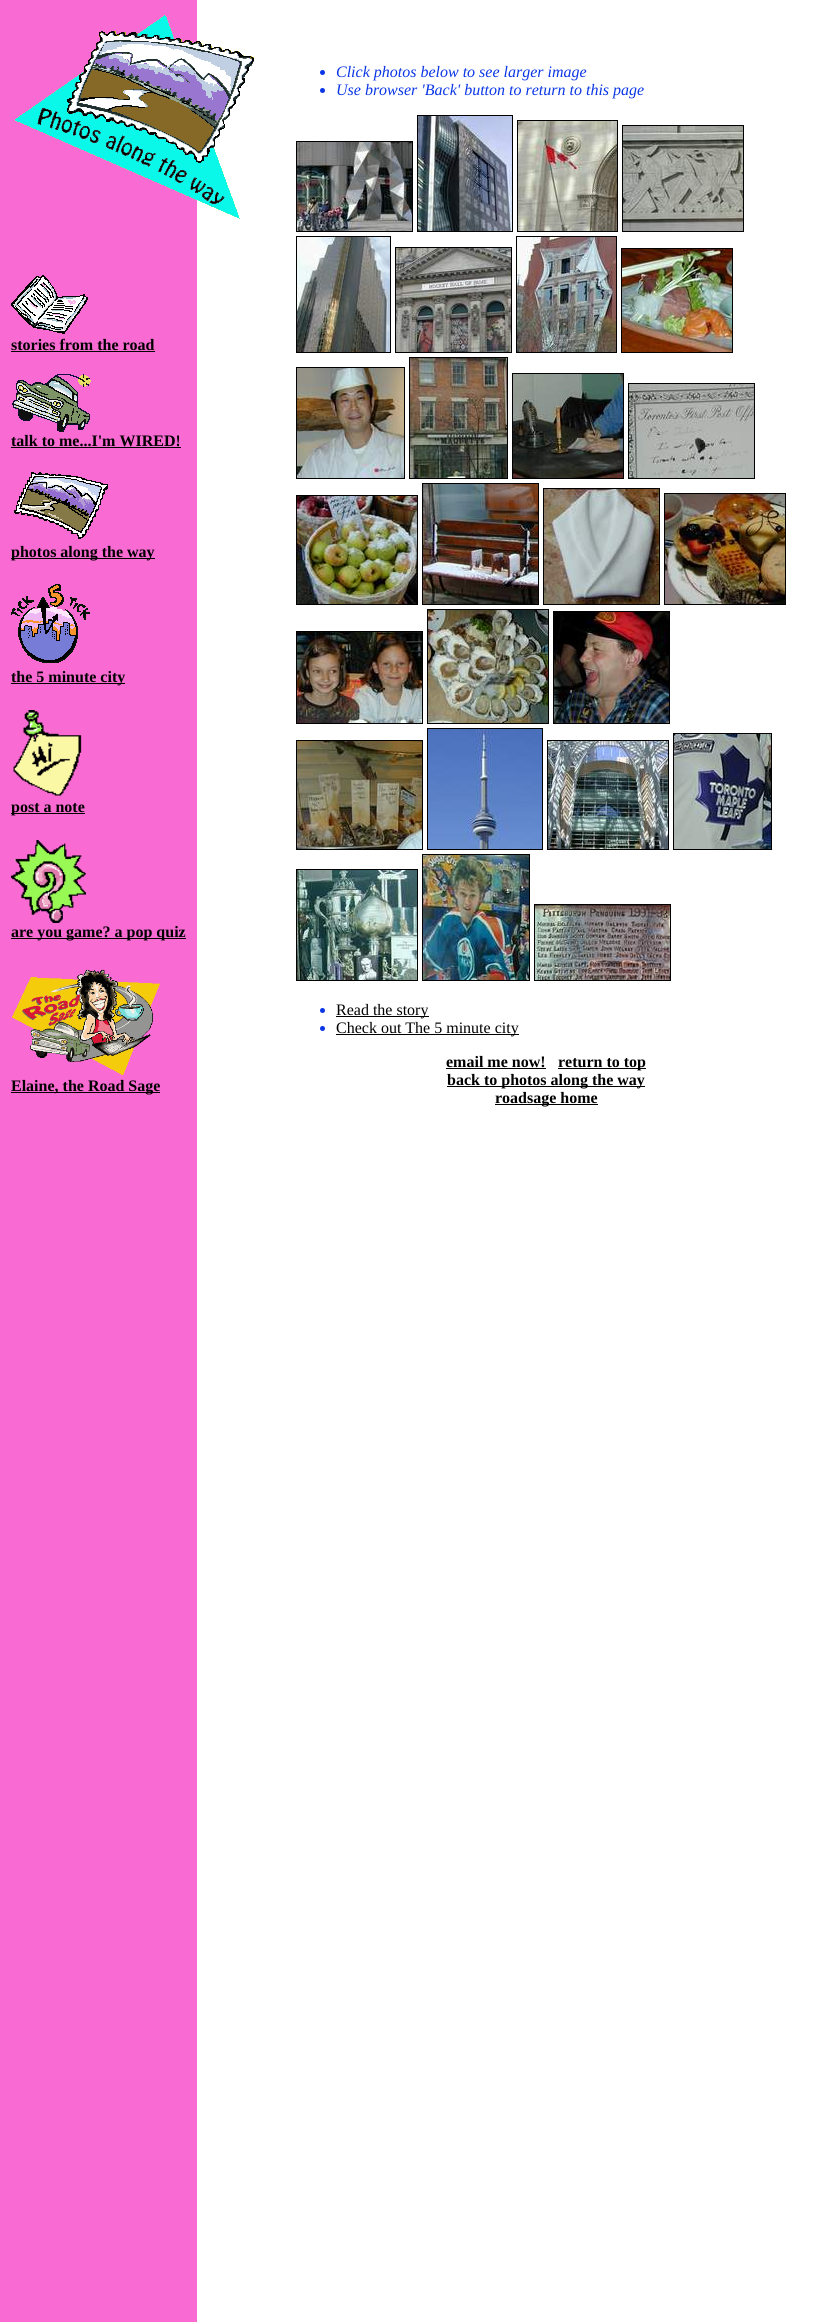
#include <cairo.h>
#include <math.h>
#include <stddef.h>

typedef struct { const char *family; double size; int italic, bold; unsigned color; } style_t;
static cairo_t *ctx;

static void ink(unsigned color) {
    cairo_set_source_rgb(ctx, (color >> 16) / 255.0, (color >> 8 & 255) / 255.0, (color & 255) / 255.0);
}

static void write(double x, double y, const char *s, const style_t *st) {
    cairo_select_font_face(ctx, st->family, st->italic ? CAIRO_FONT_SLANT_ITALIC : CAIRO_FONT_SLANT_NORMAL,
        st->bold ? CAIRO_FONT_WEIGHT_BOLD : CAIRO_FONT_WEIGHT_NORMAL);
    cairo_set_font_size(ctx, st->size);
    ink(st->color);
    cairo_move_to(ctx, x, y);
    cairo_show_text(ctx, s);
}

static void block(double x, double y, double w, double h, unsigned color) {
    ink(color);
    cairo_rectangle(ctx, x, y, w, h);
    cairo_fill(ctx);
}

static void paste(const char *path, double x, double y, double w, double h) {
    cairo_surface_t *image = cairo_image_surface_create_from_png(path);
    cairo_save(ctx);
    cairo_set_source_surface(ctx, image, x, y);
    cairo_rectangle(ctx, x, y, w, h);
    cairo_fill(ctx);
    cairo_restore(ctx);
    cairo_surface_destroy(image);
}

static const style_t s1 = {"Liberation Serif", 16, 0, 1, 0x000000};
static const style_t s2 = {"Liberation Serif", 16, 1, 0, 0x0a36e6};
static const style_t s3 = {"Liberation Serif", 16, 0, 0, 0x000000};

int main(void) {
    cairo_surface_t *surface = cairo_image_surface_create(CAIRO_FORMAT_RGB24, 815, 2322);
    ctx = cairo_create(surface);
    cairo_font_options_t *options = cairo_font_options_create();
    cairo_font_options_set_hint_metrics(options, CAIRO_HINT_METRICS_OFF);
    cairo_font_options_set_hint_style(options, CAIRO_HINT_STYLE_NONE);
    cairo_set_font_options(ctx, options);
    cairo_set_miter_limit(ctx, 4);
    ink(0xffffff);
    cairo_paint(ctx);
    block(0, 0, 197, 2322, 0xf96ad3);
    paste("pic1.png", 11, 275, 77, 59);
    write(11, 350, "stories from the road", &s1);
    block(11, 351, 144, 1, 0x000000);
    paste("pic2.png", 15, 15, 239, 204);
    ink(0x0a36e6);
    cairo_arc(ctx, 322.5, 72.5, 2.5, 0, 2 * M_PI);
    cairo_fill(ctx);
    write(336, 77, "Click photos below to see larger image", &s2);
    cairo_new_path(ctx);
    cairo_arc(ctx, 322.5, 90.5, 2.5, 0, 2 * M_PI);
    cairo_fill(ctx);
    write(336, 95, "Use browser 'Back' button to return to this page", &s2);
    cairo_rectangle(ctx, 417.5, 115.5, 95, 116);
    ink(0x000000);
    cairo_set_line_width(ctx, 1);
    cairo_stroke(ctx);
    paste("pic3.png", 418, 116, 94, 115);
    cairo_rectangle(ctx, 517.5, 120.5, 100, 111);
    cairo_stroke(ctx);
    paste("pic4.png", 518, 121, 99, 110);
    cairo_rectangle(ctx, 622.5, 125.5, 121, 106);
    cairo_stroke(ctx);
    cairo_rectangle(ctx, 296.5, 141.5, 116, 90);
    cairo_stroke(ctx);
    paste("pic5.png", 623, 126, 120, 105);
    paste("pic6.png", 297, 142, 115, 89);
    cairo_rectangle(ctx, 296.5, 236.5, 94, 116);
    cairo_stroke(ctx);
    cairo_rectangle(ctx, 516.5, 236.5, 100, 116);
    cairo_stroke(ctx);
    paste("pic7.png", 297, 237, 93, 115);
    cairo_rectangle(ctx, 395.5, 247.5, 116, 105);
    cairo_stroke(ctx);
    paste("pic8.png", 517, 237, 99, 115);
    paste("pic9.png", 396, 248, 115, 104);
    cairo_rectangle(ctx, 621.5, 248.5, 111, 104);
    cairo_stroke(ctx);
    paste("pic10.png", 622, 249, 110, 103);
    cairo_rectangle(ctx, 409.5, 357.5, 98, 121);
    cairo_stroke(ctx);
    cairo_rectangle(ctx, 296.5, 367.5, 108, 111);
    cairo_stroke(ctx);
    paste("pic11.png", 410, 358, 97, 120);
    paste("pic12.png", 297, 368, 107, 110);
    cairo_rectangle(ctx, 512.5, 373.5, 111, 105);
    cairo_stroke(ctx);
    paste("pic13.png", 513, 374, 110, 104);
    cairo_rectangle(ctx, 628.5, 383.5, 126, 95);
    cairo_stroke(ctx);
    paste("pic14.png", 629, 384, 125, 94);
    cairo_rectangle(ctx, 422.5, 483.5, 116, 121);
    cairo_stroke(ctx);
    paste("pic15.png", 423, 484, 115, 120);
    cairo_rectangle(ctx, 543.5, 488.5, 116, 116);
    cairo_stroke(ctx);
    paste("pic16.png", 544, 489, 115, 115);
    cairo_rectangle(ctx, 664.5, 493.5, 121, 111);
    cairo_stroke(ctx);
    cairo_rectangle(ctx, 296.5, 495.5, 121, 109);
    cairo_stroke(ctx);
    paste("pic17.png", 665, 494, 120, 110);
    paste("pic18.png", 297, 496, 120, 108);
    cairo_rectangle(ctx, 427.5, 609.5, 121, 114);
    cairo_stroke(ctx);
    paste("pic19.png", 428, 610, 120, 113);
    cairo_rectangle(ctx, 553.5, 611.5, 116, 112);
    cairo_stroke(ctx);
    cairo_rectangle(ctx, 296.5, 631.5, 126, 92);
    cairo_stroke(ctx);
    paste("pic20.png", 554, 612, 115, 111);
    paste("pic21.png", 297, 632, 125, 91);
    cairo_rectangle(ctx, 427.5, 728.5, 115, 121);
    cairo_stroke(ctx);
    paste("pic22.png", 428, 729, 114, 120);
    cairo_rectangle(ctx, 673.5, 733.5, 98, 116);
    cairo_stroke(ctx);
    cairo_rectangle(ctx, 296.5, 740.5, 126, 109);
    cairo_stroke(ctx);
    cairo_rectangle(ctx, 547.5, 740.5, 121, 109);
    cairo_stroke(ctx);
    paste("pic23.png", 674, 734, 97, 115);
    paste("pic24.png", 297, 741, 125, 108);
    paste("pic25.png", 548, 741, 120, 108);
    cairo_rectangle(ctx, 422.5, 854.5, 107, 126);
    cairo_stroke(ctx);
    cairo_rectangle(ctx, 296.5, 869.5, 121, 111);
    cairo_stroke(ctx);
    paste("pic26.png", 423, 855, 106, 125);
    paste("pic27.png", 297, 870, 120, 110);
    cairo_rectangle(ctx, 534.5, 904.5, 136, 76);
    cairo_stroke(ctx);
    paste("pic28.png", 535, 905, 135, 75);
    ink(0x0a36e6);
    cairo_arc(ctx, 322.5, 1010.5, 2.5, 0, 2 * M_PI);
    cairo_fill(ctx);
    block(336, 1016, 93, 1, 0x000000);
    write(336, 1015, "Read the story", &s3);
    ink(0x0a36e6);
    cairo_new_path(ctx);
    cairo_arc(ctx, 322.5, 1028.5, 2.5, 0, 2 * M_PI);
    cairo_fill(ctx);
    block(336, 1034, 183, 1, 0x000000);
    write(336, 1033, "Check out The 5 minute city", &s3);
    write(446, 1067, "email me now!", &s1);
    block(446, 1068, 100, 1, 0x000000);
    block(558, 1068, 88, 1, 0x000000);
    write(558, 1067, "return to top", &s1);
    block(447, 1086, 198, 1, 0x000000);
    write(447, 1085, "back to photos along the way", &s1);
    block(495, 1104, 103, 1, 0x000000);
    write(495, 1103, "roadsage home", &s1);
    paste("pic29.png", 12, 374, 79, 58);
    write(11, 446, "talk to me...I'm WIRED!", &s1);
    block(11, 447, 170, 1, 0x000000);
    paste("pic30.png", 14, 472, 94, 67);
    block(11, 558, 144, 1, 0x000000);
    write(11, 557, "photos along the way", &s1);
    paste("pic31.png", 11, 584, 79, 79);
    block(11, 683, 114, 1, 0x000000);
    write(11, 682, "the 5 minute city", &s1);
    paste("pic32.png", 13, 710, 69, 86);
    block(11, 813, 74, 1, 0x000000);
    write(11, 812, "post a note", &s1);
    paste("pic33.png", 11, 840, 75, 83);
    block(11, 938, 175, 1, 0x000000);
    write(11, 937, "are you game? a pop quiz", &s1);
    paste("pic34.png", 12, 969, 148, 107);
    block(11, 1092, 149, 1, 0x000000);
    write(11, 1091, "Elaine, the Road Sage", &s1);
    cairo_surface_write_to_png(surface, "screenshot.png");
    cairo_font_options_destroy(options);
    cairo_destroy(ctx);
    cairo_surface_destroy(surface);
    return 0;
}
